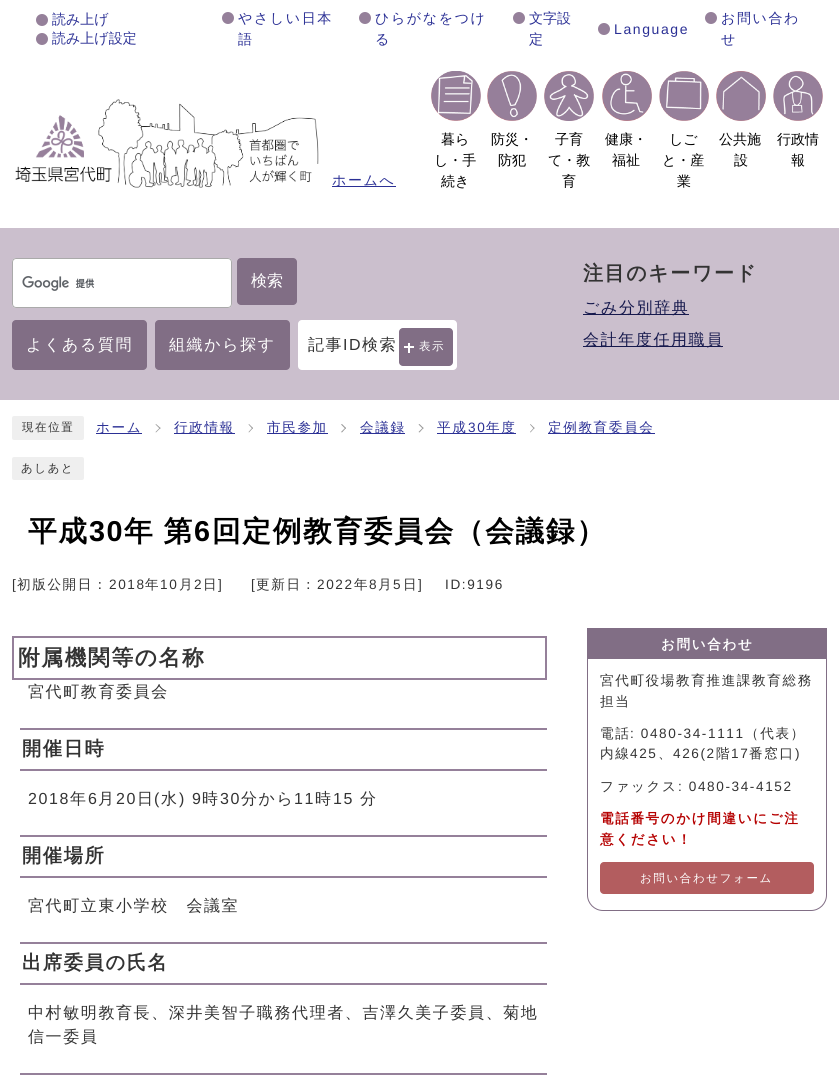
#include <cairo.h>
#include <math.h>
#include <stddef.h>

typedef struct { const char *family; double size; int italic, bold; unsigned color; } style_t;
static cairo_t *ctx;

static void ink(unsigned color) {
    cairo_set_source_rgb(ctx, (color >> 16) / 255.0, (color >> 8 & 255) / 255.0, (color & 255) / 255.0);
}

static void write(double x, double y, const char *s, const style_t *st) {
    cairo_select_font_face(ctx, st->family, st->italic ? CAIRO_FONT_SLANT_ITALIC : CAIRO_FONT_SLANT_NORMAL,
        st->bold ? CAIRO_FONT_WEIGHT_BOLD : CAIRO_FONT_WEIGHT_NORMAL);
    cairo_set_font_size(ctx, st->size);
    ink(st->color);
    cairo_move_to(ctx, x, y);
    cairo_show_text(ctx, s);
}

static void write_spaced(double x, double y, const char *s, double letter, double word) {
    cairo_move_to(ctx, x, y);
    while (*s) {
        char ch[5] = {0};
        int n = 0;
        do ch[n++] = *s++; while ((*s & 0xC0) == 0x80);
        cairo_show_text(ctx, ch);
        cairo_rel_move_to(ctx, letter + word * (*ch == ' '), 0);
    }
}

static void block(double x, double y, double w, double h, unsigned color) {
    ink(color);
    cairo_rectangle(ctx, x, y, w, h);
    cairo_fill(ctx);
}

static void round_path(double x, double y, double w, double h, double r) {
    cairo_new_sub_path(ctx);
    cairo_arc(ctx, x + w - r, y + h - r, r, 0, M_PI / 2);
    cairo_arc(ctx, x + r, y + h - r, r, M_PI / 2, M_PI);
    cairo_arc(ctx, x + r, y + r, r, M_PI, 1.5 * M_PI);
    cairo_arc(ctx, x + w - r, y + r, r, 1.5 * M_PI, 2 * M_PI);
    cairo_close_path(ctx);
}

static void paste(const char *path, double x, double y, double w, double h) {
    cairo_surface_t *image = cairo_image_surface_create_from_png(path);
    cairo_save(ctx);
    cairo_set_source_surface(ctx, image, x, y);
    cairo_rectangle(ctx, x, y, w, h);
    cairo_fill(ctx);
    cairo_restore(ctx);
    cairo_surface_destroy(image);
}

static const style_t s1 = {"WenQuanYi Zen Hei Medium", 14, 0, 0, 0x2b3095};
static const style_t s2 = {"WenQuanYi Zen Hei Medium", 14, 0, 0, 0x000000};
static const style_t s3 = {"WenQuanYi Zen Hei Medium", 16, 0, 0, 0xffffff};

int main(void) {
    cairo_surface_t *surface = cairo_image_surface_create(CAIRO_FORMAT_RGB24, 839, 1079);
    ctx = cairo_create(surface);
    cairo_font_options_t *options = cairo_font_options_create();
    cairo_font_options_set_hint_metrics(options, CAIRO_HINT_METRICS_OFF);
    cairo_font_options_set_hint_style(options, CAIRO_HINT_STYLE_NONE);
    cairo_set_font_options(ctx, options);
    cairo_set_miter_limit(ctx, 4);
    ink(0xffffff);
    cairo_paint(ctx);
    ink(0x95809a);
    cairo_arc(ctx, 42, 20, 6, 0, 2 * M_PI);
    cairo_fill(ctx);
    write(52, 24, "読み上げ", &s1);
    ink(0x95809a);
    cairo_new_path(ctx);
    cairo_arc(ctx, 42, 39, 6, 0, 2 * M_PI);
    cairo_fill(ctx);
    write(52, 43, "読み上げ設定", &s1);
    ink(0x95809a);
    cairo_new_path(ctx);
    cairo_arc(ctx, 228, 18, 6, 0, 2 * M_PI);
    cairo_fill(ctx);
    ink(0x2b3095);
    write_spaced(238, 23, "やさしい日本", 1.6, 0);
    write_spaced(238, 44, "語", 1.6, 0);
    ink(0x95809a);
    cairo_new_path(ctx);
    cairo_arc(ctx, 365, 18, 6, 0, 2 * M_PI);
    cairo_fill(ctx);
    ink(0x2b3095);
    write_spaced(375, 23, "ひらがなをつけ", 1.6, 0);
    write_spaced(375, 44, "る", 1.6, 0);
    ink(0x95809a);
    cairo_new_path(ctx);
    cairo_arc(ctx, 519, 18, 6, 0, 2 * M_PI);
    cairo_fill(ctx);
    write(529, 23, "文字設", &s1);
    write(529, 44, "定", &s1);
    ink(0x95809a);
    cairo_new_path(ctx);
    cairo_arc(ctx, 604, 29, 6, 0, 2 * M_PI);
    cairo_fill(ctx);
    cairo_select_font_face(ctx, "Liberation Sans", CAIRO_FONT_SLANT_NORMAL, CAIRO_FONT_WEIGHT_NORMAL);
    ink(0x2b3095);
    write_spaced(614, 34, "Language", 1.6, 0);
    ink(0x95809a);
    cairo_new_path(ctx);
    cairo_arc(ctx, 711, 18, 6, 0, 2 * M_PI);
    cairo_fill(ctx);
    cairo_select_font_face(ctx, "WenQuanYi Zen Hei Medium", CAIRO_FONT_SLANT_NORMAL, CAIRO_FONT_WEIGHT_NORMAL);
    ink(0x2b3095);
    write_spaced(721, 23, "お問い合わ", 1.6, 0);
    write_spaced(721, 44, "せ", 1.6, 0);
    paste("pic1.png", 15, 99, 304, 89);
    block(332, 186, 64, 1, 0x2b3095);
    write_spaced(332, 185, "ホームへ", 1.6, 0);
    paste("pic2.png", 431, 71, 50, 50);
    paste("pic3.png", 431, 71, 50, 50);
    write(441, 144, "暮ら", &s2);
    write(434, 165, "し・手", &s2);
    write(441, 186, "続き", &s2);
    paste("pic4.png", 487, 71, 50, 50);
    paste("pic5.png", 487, 71, 50, 50);
    write(491, 144, "防災・", &s2);
    write(498, 165, "防犯", &s2);
    paste("pic6.png", 544, 71, 50, 50);
    paste("pic7.png", 544, 71, 50, 50);
    write(555, 144, "子育", &s2);
    write(548, 165, "て・教", &s2);
    write(562, 186, "育", &s2);
    paste("pic8.png", 602, 71, 50, 50);
    paste("pic9.png", 602, 71, 50, 50);
    write(605, 144, "健康・", &s2);
    write(612, 165, "福祉", &s2);
    paste("pic10.png", 659, 71, 50, 50);
    paste("pic11.png", 659, 71, 50, 50);
    write(669, 144, "しご", &s2);
    write(662, 165, "と・産", &s2);
    write(677, 186, "業", &s2);
    paste("pic12.png", 716, 71, 50, 50);
    paste("pic13.png", 716, 71, 50, 50);
    write(719, 144, "公共施", &s2);
    write(734, 165, "設", &s2);
    paste("pic14.png", 773, 71, 50, 50);
    paste("pic15.png", 773, 71, 50, 50);
    write(777, 144, "行政情", &s2);
    write(791, 165, "報", &s2);
    block(0, 228, 839, 172, 0xcbbfcd);
    ink(0xffffff);
    round_path(12, 258, 220, 50, 4);
    cairo_fill(ctx);
    paste("pic16.png", 22, 276, 73, 15);
    round_path(12.5, 258.5, 219, 49, 3.5);
    ink(0xaaaaaa);
    cairo_set_line_width(ctx, 1);
    cairo_stroke(ctx);
    ink(0x816e85);
    round_path(237, 258, 60, 47, 4);
    cairo_fill(ctx);
    write(251, 286, "検索", &s3);
    ink(0x816e85);
    round_path(12, 320, 135, 50, 4);
    cairo_fill(ctx);
    ink(0xffffff);
    write_spaced(26, 350, "よくある質問", 1.6, 0);
    ink(0x816e85);
    round_path(155, 320, 135, 50, 4);
    cairo_fill(ctx);
    ink(0xffffff);
    write_spaced(169, 350, "組織から探す", 1.6, 0);
    round_path(298, 320, 159, 50, 4);
    cairo_fill(ctx);
    ink(0x333333);
    write_spaced(308, 350, "記事", 1.6, 0);
    cairo_select_font_face(ctx, "Liberation Sans", CAIRO_FONT_SLANT_NORMAL, CAIRO_FONT_WEIGHT_NORMAL);
    write_spaced(343, 350, "ID", 1.6, 0);
    cairo_select_font_face(ctx, "WenQuanYi Zen Hei Medium", CAIRO_FONT_SLANT_NORMAL, CAIRO_FONT_WEIGHT_NORMAL);
    write_spaced(362, 350, "検索", 1.6, 0);
    ink(0x816e85);
    round_path(399, 328, 54, 38, 4);
    cairo_fill(ctx);
    block(404, 346, 10, 2, 0xffffff);
    block(408, 343, 2, 10, 0xffffff);
    cairo_set_font_size(ctx, 11.5);
    write_spaced(419, 350, "表示", 1.6, 0);
    cairo_select_font_face(ctx, "WenQuanYi Zen Hei", CAIRO_FONT_SLANT_NORMAL, CAIRO_FONT_WEIGHT_BOLD);
    cairo_set_font_size(ctx, 20);
    ink(0x333333);
    write_spaced(583, 280, "注目のキーワード", 1.6, 0);
    block(583, 314, 106, 1, 0x16194d);
    cairo_select_font_face(ctx, "WenQuanYi Zen Hei Medium", CAIRO_FONT_SLANT_NORMAL, CAIRO_FONT_WEIGHT_NORMAL);
    cairo_set_font_size(ctx, 16);
    write_spaced(583, 313, "ごみ分別辞典", 1.6, 0);
    block(583, 346, 140, 1, 0x16194d);
    write_spaced(583, 345, "会計年度任用職員", 1.6, 0);
    ink(0xefefef);
    round_path(12, 416, 72, 24, 2);
    cairo_fill(ctx);
    cairo_set_font_size(ctx, 11.5);
    ink(0x333333);
    write_spaced(22, 431, "現在位置", 1.6, 0);
    block(96, 433, 46, 1, 0x2b3095);
    cairo_set_font_size(ctx, 13.6);
    write_spaced(96, 432, "ホーム", 1.6, 0);
    ink(0x999999);
    cairo_new_path(ctx);
    cairo_move_to(ctx, 155.5, 424.5);
    cairo_line_to(ctx, 156, 424);
    cairo_line_to(ctx, 160.5, 428);
    cairo_line_to(ctx, 160, 429);
    cairo_close_path(ctx);
    cairo_fill(ctx);
    cairo_new_path(ctx);
    cairo_move_to(ctx, 155.5, 432);
    cairo_line_to(ctx, 160, 427.5);
    cairo_line_to(ctx, 160.5, 428);
    cairo_line_to(ctx, 156, 432.5);
    cairo_close_path(ctx);
    cairo_fill(ctx);
    block(174, 433, 61, 1, 0x2b3095);
    write_spaced(174, 432, "行政情報", 1.6, 0);
    ink(0x999999);
    cairo_new_path(ctx);
    cairo_move_to(ctx, 248.5, 424.5);
    cairo_line_to(ctx, 249, 424);
    cairo_line_to(ctx, 253, 428);
    cairo_line_to(ctx, 252.5, 429);
    cairo_close_path(ctx);
    cairo_fill(ctx);
    cairo_new_path(ctx);
    cairo_move_to(ctx, 248.5, 432);
    cairo_line_to(ctx, 252.5, 427.5);
    cairo_line_to(ctx, 253, 428);
    cairo_line_to(ctx, 249, 432.5);
    cairo_close_path(ctx);
    cairo_fill(ctx);
    block(267, 433, 61, 1, 0x2b3095);
    write_spaced(267, 432, "市民参加", 1.6, 0);
    ink(0x999999);
    cairo_new_path(ctx);
    cairo_move_to(ctx, 341, 424.5);
    cairo_line_to(ctx, 342, 424);
    cairo_line_to(ctx, 346, 428);
    cairo_line_to(ctx, 345.5, 429);
    cairo_close_path(ctx);
    cairo_fill(ctx);
    cairo_new_path(ctx);
    cairo_move_to(ctx, 341, 432);
    cairo_line_to(ctx, 345.5, 427.5);
    cairo_line_to(ctx, 346, 428);
    cairo_line_to(ctx, 342, 432.5);
    cairo_close_path(ctx);
    cairo_fill(ctx);
    block(360, 433, 45, 1, 0x2b3095);
    write_spaced(360, 432, "会議録", 1.6, 0);
    ink(0x999999);
    cairo_new_path(ctx);
    cairo_move_to(ctx, 418.5, 424.5);
    cairo_line_to(ctx, 419.5, 424);
    cairo_line_to(ctx, 423.5, 428);
    cairo_line_to(ctx, 423, 429);
    cairo_close_path(ctx);
    cairo_fill(ctx);
    cairo_new_path(ctx);
    cairo_move_to(ctx, 418.5, 432);
    cairo_line_to(ctx, 423, 427.5);
    cairo_line_to(ctx, 423.5, 428);
    cairo_line_to(ctx, 419.5, 432.5);
    cairo_close_path(ctx);
    cairo_fill(ctx);
    block(437, 433, 79, 1, 0x2b3095);
    write_spaced(437, 432, "平成", 1.6, 0);
    cairo_select_font_face(ctx, "Liberation Sans", CAIRO_FONT_SLANT_NORMAL, CAIRO_FONT_WEIGHT_NORMAL);
    write_spaced(468, 432, "30", 1.6, 0);
    cairo_select_font_face(ctx, "WenQuanYi Zen Hei Medium", CAIRO_FONT_SLANT_NORMAL, CAIRO_FONT_WEIGHT_NORMAL);
    write_spaced(486, 432, "年度", 1.6, 0);
    ink(0x999999);
    cairo_new_path(ctx);
    cairo_move_to(ctx, 530, 424.5);
    cairo_line_to(ctx, 530.5, 424);
    cairo_line_to(ctx, 534.5, 428);
    cairo_line_to(ctx, 534, 429);
    cairo_close_path(ctx);
    cairo_fill(ctx);
    cairo_new_path(ctx);
    cairo_move_to(ctx, 530, 432);
    cairo_line_to(ctx, 534, 427.5);
    cairo_line_to(ctx, 534.5, 428);
    cairo_line_to(ctx, 530.5, 432.5);
    cairo_close_path(ctx);
    cairo_fill(ctx);
    block(548, 433, 107, 1, 0x2b3095);
    write_spaced(548, 432, "定例教育委員会", 1.6, 0);
    ink(0xefefef);
    round_path(12, 457, 72, 23, 2);
    cairo_fill(ctx);
    cairo_set_font_size(ctx, 11.5);
    ink(0x333333);
    write_spaced(21, 472, "あしあと", 1.6, 0);
    cairo_select_font_face(ctx, "WenQuanYi Zen Hei", CAIRO_FONT_SLANT_NORMAL, CAIRO_FONT_WEIGHT_BOLD);
    cairo_set_font_size(ctx, 28.75);
    ink(0x000000);
    write_spaced(28, 541, "平成", 1.6, 0);
    cairo_select_font_face(ctx, "Liberation Sans", CAIRO_FONT_SLANT_NORMAL, CAIRO_FONT_WEIGHT_BOLD);
    write_spaced(89, 541, "30", 1.6, 0);
    cairo_select_font_face(ctx, "WenQuanYi Zen Hei", CAIRO_FONT_SLANT_NORMAL, CAIRO_FONT_WEIGHT_BOLD);
    write_spaced(124, 541, "年 第", 1.6, -1);
    cairo_select_font_face(ctx, "Liberation Sans", CAIRO_FONT_SLANT_NORMAL, CAIRO_FONT_WEIGHT_BOLD);
    write_spaced(194, 541, "6", 1.6, 0);
    cairo_select_font_face(ctx, "WenQuanYi Zen Hei", CAIRO_FONT_SLANT_NORMAL, CAIRO_FONT_WEIGHT_BOLD);
    write_spaced(212, 541, "回定例教育委員会（会議録）", 1.6, 0);
    cairo_select_font_face(ctx, "Liberation Sans", CAIRO_FONT_SLANT_NORMAL, CAIRO_FONT_WEIGHT_NORMAL);
    cairo_set_font_size(ctx, 13.6);
    ink(0x333333);
    write_spaced(12, 589, "[", 1.6, 0);
    cairo_select_font_face(ctx, "WenQuanYi Zen Hei Medium", CAIRO_FONT_SLANT_NORMAL, CAIRO_FONT_WEIGHT_NORMAL);
    write_spaced(17, 589, "初版公開日：", 1.6, 0);
    cairo_select_font_face(ctx, "Liberation Sans", CAIRO_FONT_SLANT_NORMAL, CAIRO_FONT_WEIGHT_NORMAL);
    write_spaced(109, 589, "2018", 1.6, 0);
    cairo_select_font_face(ctx, "WenQuanYi Zen Hei Medium", CAIRO_FONT_SLANT_NORMAL, CAIRO_FONT_WEIGHT_NORMAL);
    write_spaced(145, 589, "年", 1.6, 0);
    cairo_select_font_face(ctx, "Liberation Sans", CAIRO_FONT_SLANT_NORMAL, CAIRO_FONT_WEIGHT_NORMAL);
    write_spaced(160, 589, "10", 1.6, 0);
    cairo_select_font_face(ctx, "WenQuanYi Zen Hei Medium", CAIRO_FONT_SLANT_NORMAL, CAIRO_FONT_WEIGHT_NORMAL);
    write_spaced(179, 589, "月", 1.6, 0);
    cairo_select_font_face(ctx, "Liberation Sans", CAIRO_FONT_SLANT_NORMAL, CAIRO_FONT_WEIGHT_NORMAL);
    write_spaced(194, 589, "2", 1.6, 0);
    cairo_select_font_face(ctx, "WenQuanYi Zen Hei Medium", CAIRO_FONT_SLANT_NORMAL, CAIRO_FONT_WEIGHT_NORMAL);
    write_spaced(203, 589, "日", 1.6, 0);
    cairo_select_font_face(ctx, "Liberation Sans", CAIRO_FONT_SLANT_NORMAL, CAIRO_FONT_WEIGHT_NORMAL);
    write_spaced(218, 589, "]", 1.6, 0);
    write_spaced(251, 589, "[", 1.6, 0);
    cairo_select_font_face(ctx, "WenQuanYi Zen Hei Medium", CAIRO_FONT_SLANT_NORMAL, CAIRO_FONT_WEIGHT_NORMAL);
    write_spaced(256, 589, "更新日：", 1.6, 0);
    cairo_select_font_face(ctx, "Liberation Sans", CAIRO_FONT_SLANT_NORMAL, CAIRO_FONT_WEIGHT_NORMAL);
    write_spaced(317, 589, "2022", 1.6, 0);
    cairo_select_font_face(ctx, "WenQuanYi Zen Hei Medium", CAIRO_FONT_SLANT_NORMAL, CAIRO_FONT_WEIGHT_NORMAL);
    write_spaced(354, 589, "年", 1.6, 0);
    cairo_select_font_face(ctx, "Liberation Sans", CAIRO_FONT_SLANT_NORMAL, CAIRO_FONT_WEIGHT_NORMAL);
    write_spaced(369, 589, "8", 1.6, 0);
    cairo_select_font_face(ctx, "WenQuanYi Zen Hei Medium", CAIRO_FONT_SLANT_NORMAL, CAIRO_FONT_WEIGHT_NORMAL);
    write_spaced(378, 589, "月", 1.6, 0);
    cairo_select_font_face(ctx, "Liberation Sans", CAIRO_FONT_SLANT_NORMAL, CAIRO_FONT_WEIGHT_NORMAL);
    write_spaced(393, 589, "5", 1.6, 0);
    cairo_select_font_face(ctx, "WenQuanYi Zen Hei Medium", CAIRO_FONT_SLANT_NORMAL, CAIRO_FONT_WEIGHT_NORMAL);
    write_spaced(403, 589, "日", 1.6, 0);
    cairo_select_font_face(ctx, "Liberation Sans", CAIRO_FONT_SLANT_NORMAL, CAIRO_FONT_WEIGHT_NORMAL);
    write_spaced(418, 589, "]", 1.6, 0);
    write_spaced(445, 589, "ID:9196", 1.6, 0);
    cairo_rectangle(ctx, 13, 637, 533, 42);
    ink(0x95809a);
    cairo_set_line_width(ctx, 2);
    cairo_stroke(ctx);
    cairo_select_font_face(ctx, "WenQuanYi Zen Hei", CAIRO_FONT_SLANT_NORMAL, CAIRO_FONT_WEIGHT_BOLD);
    cairo_set_font_size(ctx, 21.75);
    ink(0x333333);
    write_spaced(18, 665, "附属機関等の名称", 1.6, 0);
    cairo_select_font_face(ctx, "WenQuanYi Zen Hei Medium", CAIRO_FONT_SLANT_NORMAL, CAIRO_FONT_WEIGHT_NORMAL);
    cairo_set_font_size(ctx, 16);
    write_spaced(28, 697, "宮代町教育委員会", 1.6, 0);
    block(20, 728, 527, 2, 0x95809a);
    block(20, 769, 527, 2, 0x95809a);
    cairo_select_font_face(ctx, "WenQuanYi Zen Hei", CAIRO_FONT_SLANT_NORMAL, CAIRO_FONT_WEIGHT_BOLD);
    cairo_set_font_size(ctx, 19.25);
    ink(0x333333);
    write_spaced(22, 755, "開催日時", 1.6, 0);
    cairo_select_font_face(ctx, "Liberation Sans", CAIRO_FONT_SLANT_NORMAL, CAIRO_FONT_WEIGHT_NORMAL);
    cairo_set_font_size(ctx, 16);
    write_spaced(28, 804, "2018", 1.6, 0);
    cairo_select_font_face(ctx, "WenQuanYi Zen Hei Medium", CAIRO_FONT_SLANT_NORMAL, CAIRO_FONT_WEIGHT_NORMAL);
    write_spaced(70, 804, "年", 1.6, 0);
    cairo_select_font_face(ctx, "Liberation Sans", CAIRO_FONT_SLANT_NORMAL, CAIRO_FONT_WEIGHT_NORMAL);
    write_spaced(88, 804, "6", 1.6, 0);
    cairo_select_font_face(ctx, "WenQuanYi Zen Hei Medium", CAIRO_FONT_SLANT_NORMAL, CAIRO_FONT_WEIGHT_NORMAL);
    write_spaced(98, 804, "月", 1.6, 0);
    cairo_select_font_face(ctx, "Liberation Sans", CAIRO_FONT_SLANT_NORMAL, CAIRO_FONT_WEIGHT_NORMAL);
    write_spaced(116, 804, "20", 1.6, 0);
    cairo_select_font_face(ctx, "WenQuanYi Zen Hei Medium", CAIRO_FONT_SLANT_NORMAL, CAIRO_FONT_WEIGHT_NORMAL);
    write_spaced(137, 804, "日", 1.6, 0);
    cairo_select_font_face(ctx, "Liberation Sans", CAIRO_FONT_SLANT_NORMAL, CAIRO_FONT_WEIGHT_NORMAL);
    write_spaced(154, 804, "(", 1.6, 0);
    cairo_select_font_face(ctx, "WenQuanYi Zen Hei Medium", CAIRO_FONT_SLANT_NORMAL, CAIRO_FONT_WEIGHT_NORMAL);
    write_spaced(161, 804, "水", 1.6, 0);
    cairo_select_font_face(ctx, "Liberation Sans", CAIRO_FONT_SLANT_NORMAL, CAIRO_FONT_WEIGHT_NORMAL);
    write_spaced(179, 804, ") 9", 1.6, 0);
    cairo_select_font_face(ctx, "WenQuanYi Zen Hei Medium", CAIRO_FONT_SLANT_NORMAL, CAIRO_FONT_WEIGHT_NORMAL);
    write_spaced(202, 804, "時", 1.6, 0);
    cairo_select_font_face(ctx, "Liberation Sans", CAIRO_FONT_SLANT_NORMAL, CAIRO_FONT_WEIGHT_NORMAL);
    write_spaced(220, 804, "30", 1.6, 0);
    cairo_select_font_face(ctx, "WenQuanYi Zen Hei Medium", CAIRO_FONT_SLANT_NORMAL, CAIRO_FONT_WEIGHT_NORMAL);
    write_spaced(241, 804, "分から", 1.6, 0);
    cairo_select_font_face(ctx, "Liberation Sans", CAIRO_FONT_SLANT_NORMAL, CAIRO_FONT_WEIGHT_NORMAL);
    write_spaced(294, 804, "11", 1.6, 0);
    cairo_select_font_face(ctx, "WenQuanYi Zen Hei Medium", CAIRO_FONT_SLANT_NORMAL, CAIRO_FONT_WEIGHT_NORMAL);
    write_spaced(315, 804, "時", 1.6, 0);
    cairo_select_font_face(ctx, "Liberation Sans", CAIRO_FONT_SLANT_NORMAL, CAIRO_FONT_WEIGHT_NORMAL);
    write_spaced(333, 804, "15", 1.6, 0);
    cairo_select_font_face(ctx, "WenQuanYi Zen Hei Medium", CAIRO_FONT_SLANT_NORMAL, CAIRO_FONT_WEIGHT_NORMAL);
    write_spaced(360, 804, "分", 1.6, 0);
    block(20, 835, 527, 2, 0x95809a);
    block(20, 876, 527, 2, 0x95809a);
    cairo_select_font_face(ctx, "WenQuanYi Zen Hei", CAIRO_FONT_SLANT_NORMAL, CAIRO_FONT_WEIGHT_BOLD);
    cairo_set_font_size(ctx, 19.25);
    ink(0x333333);
    write_spaced(22, 862, "開催場所", 1.6, 0);
    cairo_select_font_face(ctx, "WenQuanYi Zen Hei Medium", CAIRO_FONT_SLANT_NORMAL, CAIRO_FONT_WEIGHT_NORMAL);
    cairo_set_font_size(ctx, 16);
    write_spaced(28, 911, "宮代町立東小学校　会議室", 1.6, 0);
    block(20, 942, 527, 2, 0x95809a);
    block(20, 983, 527, 2, 0x95809a);
    cairo_select_font_face(ctx, "WenQuanYi Zen Hei", CAIRO_FONT_SLANT_NORMAL, CAIRO_FONT_WEIGHT_BOLD);
    cairo_set_font_size(ctx, 19.25);
    ink(0x333333);
    write_spaced(22, 969, "出席委員の氏名", 1.6, 0);
    cairo_select_font_face(ctx, "WenQuanYi Zen Hei Medium", CAIRO_FONT_SLANT_NORMAL, CAIRO_FONT_WEIGHT_NORMAL);
    cairo_set_font_size(ctx, 16);
    write_spaced(28, 1018, "中村敏明教育長、深井美智子職務代理者、吉澤久美子委員、菊地", 1.6, 0);
    write_spaced(28, 1042, "信一委員", 1.6, 0);
    block(20, 1073, 527, 2, 0x95809a);
    cairo_new_path(ctx);
    cairo_move_to(ctx, 587.5, 628.5);
    cairo_line_to(ctx, 826.5, 628.5);
    cairo_line_to(ctx, 826.5, 895);
    cairo_curve_to(ctx, 826.5, 903.5, 819.5, 910.5, 811, 910.5);
    cairo_line_to(ctx, 603, 910.5);
    cairo_curve_to(ctx, 594.5, 910.5, 587.5, 903.5, 587.5, 895);
    cairo_close_path(ctx);
    ink(0x816e85);
    cairo_set_line_width(ctx, 1);
    cairo_stroke(ctx);
    block(588, 629, 238, 30, 0x816e85);
    cairo_select_font_face(ctx, "WenQuanYi Zen Hei", CAIRO_FONT_SLANT_NORMAL, CAIRO_FONT_WEIGHT_BOLD);
    cairo_set_font_size(ctx, 13.6);
    ink(0xffffff);
    write_spaced(661, 649, "お問い合わせ", 1.6, 0);
    cairo_select_font_face(ctx, "WenQuanYi Zen Hei Medium", CAIRO_FONT_SLANT_NORMAL, CAIRO_FONT_WEIGHT_NORMAL);
    ink(0x333333);
    write_spaced(600, 685, "宮代町役場教育推進課教育総務", 1.6, 0);
    write_spaced(600, 706, "担当", 1.6, 0);
    write_spaced(600, 738, "電話", 1.6, 0);
    cairo_select_font_face(ctx, "Liberation Sans", CAIRO_FONT_SLANT_NORMAL, CAIRO_FONT_WEIGHT_NORMAL);
    write_spaced(630, 738, ": 0480-34-1111", 1.6, 0);
    cairo_select_font_face(ctx, "WenQuanYi Zen Hei Medium", CAIRO_FONT_SLANT_NORMAL, CAIRO_FONT_WEIGHT_NORMAL);
    write_spaced(745, 738, "（代表）", 1.6, 0);
    write_spaced(600, 758, "内線", 1.6, 0);
    cairo_select_font_face(ctx, "Liberation Sans", CAIRO_FONT_SLANT_NORMAL, CAIRO_FONT_WEIGHT_NORMAL);
    write_spaced(630, 758, "425", 1.6, 0);
    cairo_select_font_face(ctx, "WenQuanYi Zen Hei Medium", CAIRO_FONT_SLANT_NORMAL, CAIRO_FONT_WEIGHT_NORMAL);
    write_spaced(658, 758, "、", 1.6, 0);
    cairo_select_font_face(ctx, "Liberation Sans", CAIRO_FONT_SLANT_NORMAL, CAIRO_FONT_WEIGHT_NORMAL);
    write_spaced(673, 758, "426(2", 1.6, 0);
    cairo_select_font_face(ctx, "WenQuanYi Zen Hei Medium", CAIRO_FONT_SLANT_NORMAL, CAIRO_FONT_WEIGHT_NORMAL);
    write_spaced(716, 758, "階", 1.6, 0);
    cairo_select_font_face(ctx, "Liberation Sans", CAIRO_FONT_SLANT_NORMAL, CAIRO_FONT_WEIGHT_NORMAL);
    write_spaced(731, 758, "17", 1.6, 0);
    cairo_select_font_face(ctx, "WenQuanYi Zen Hei Medium", CAIRO_FONT_SLANT_NORMAL, CAIRO_FONT_WEIGHT_NORMAL);
    write_spaced(749, 758, "番窓口", 1.6, 0);
    cairo_select_font_face(ctx, "Liberation Sans", CAIRO_FONT_SLANT_NORMAL, CAIRO_FONT_WEIGHT_NORMAL);
    write_spaced(795, 758, ")", 1.6, 0);
    cairo_select_font_face(ctx, "WenQuanYi Zen Hei Medium", CAIRO_FONT_SLANT_NORMAL, CAIRO_FONT_WEIGHT_NORMAL);
    write_spaced(600, 791, "ファックス", 1.6, 0);
    cairo_select_font_face(ctx, "Liberation Sans", CAIRO_FONT_SLANT_NORMAL, CAIRO_FONT_WEIGHT_NORMAL);
    write_spaced(678, 791, ": 0480-34-4152", 1.6, 0);
    cairo_select_font_face(ctx, "WenQuanYi Zen Hei", CAIRO_FONT_SLANT_NORMAL, CAIRO_FONT_WEIGHT_BOLD);
    ink(0xb50000);
    write_spaced(600, 823, "電話番号のかけ間違いにご注", 1.6, 0);
    write_spaced(600, 844, "意ください！", 1.6, 0);
    ink(0xb35d5f);
    round_path(600, 862, 214, 32, 4);
    cairo_fill(ctx);
    cairo_select_font_face(ctx, "WenQuanYi Zen Hei Medium", CAIRO_FONT_SLANT_NORMAL, CAIRO_FONT_WEIGHT_NORMAL);
    cairo_set_font_size(ctx, 11.5);
    ink(0xffffff);
    write_spaced(640, 882, "お問い合わせフォーム", 1.6, 0);
    cairo_surface_write_to_png(surface, "screenshot.png");
    cairo_font_options_destroy(options);
    cairo_destroy(ctx);
    cairo_surface_destroy(surface);
    return 0;
}
